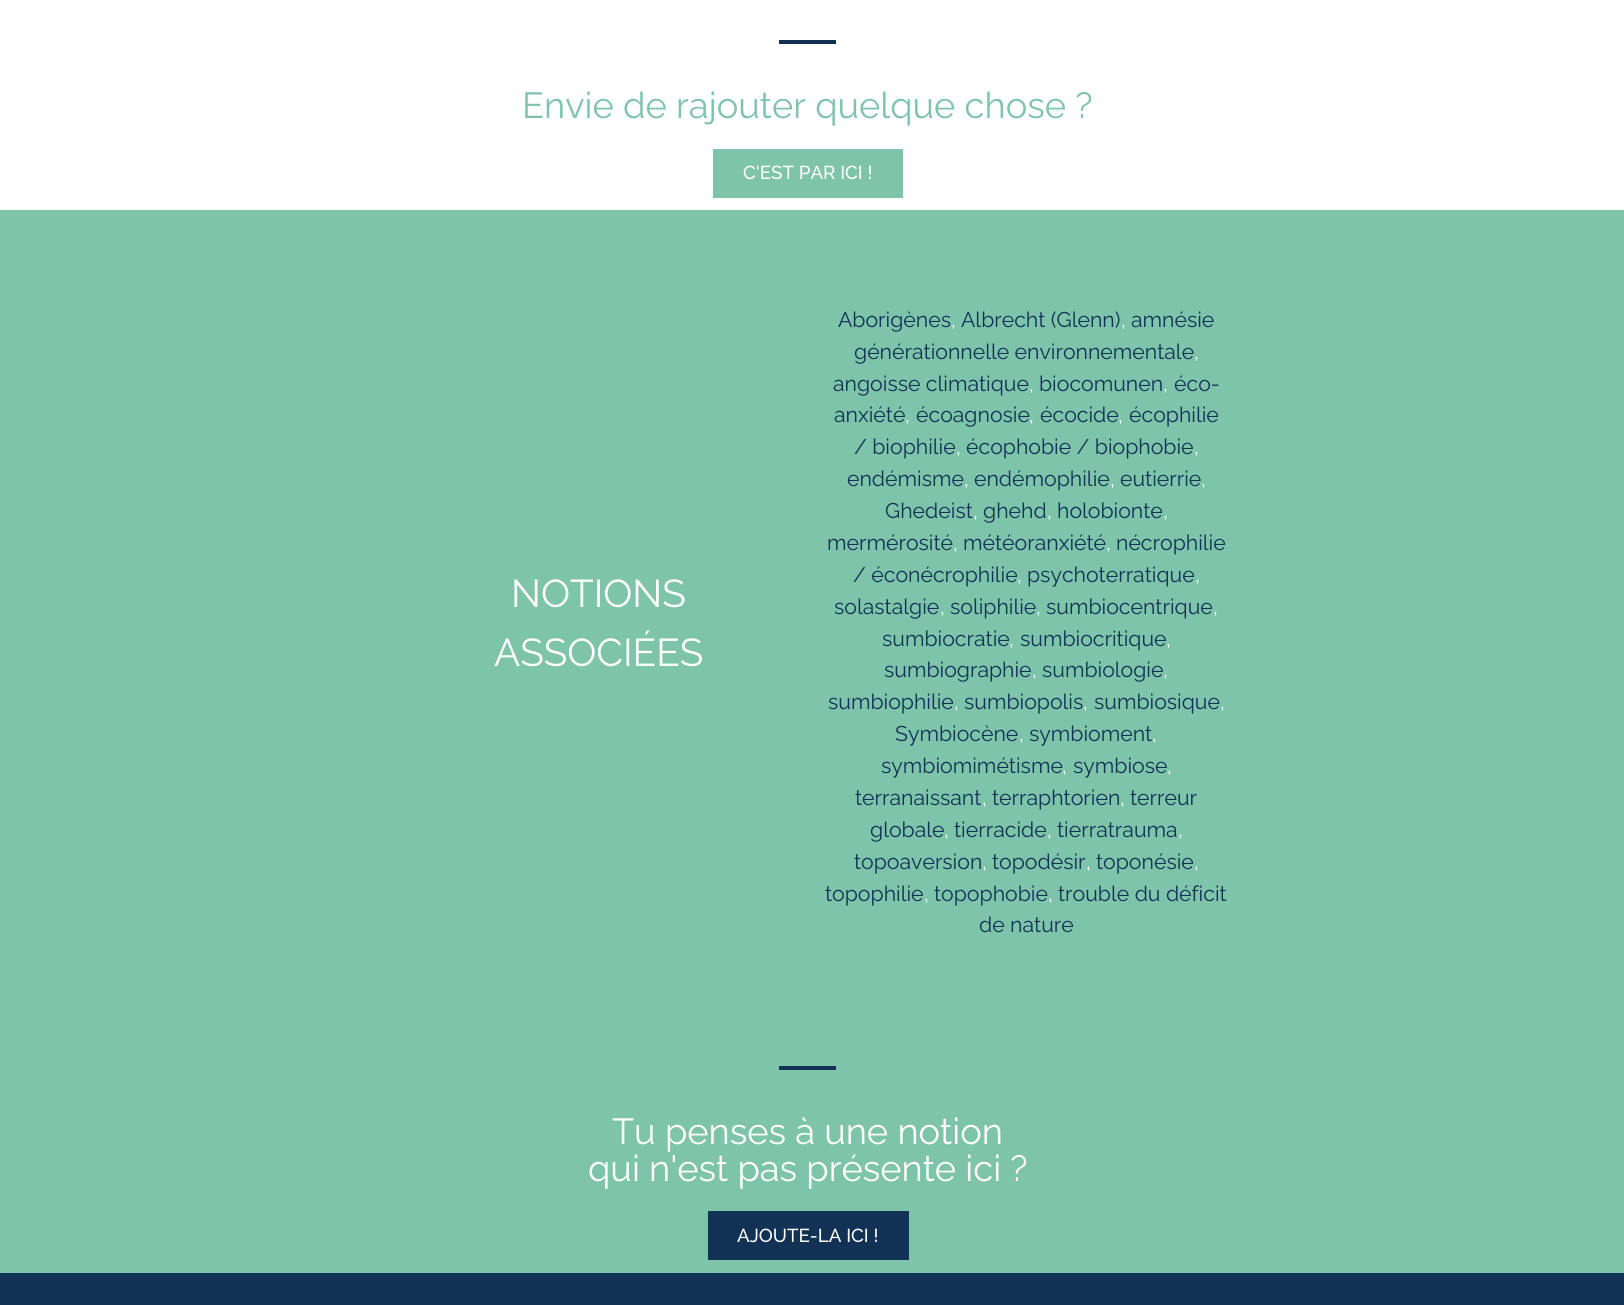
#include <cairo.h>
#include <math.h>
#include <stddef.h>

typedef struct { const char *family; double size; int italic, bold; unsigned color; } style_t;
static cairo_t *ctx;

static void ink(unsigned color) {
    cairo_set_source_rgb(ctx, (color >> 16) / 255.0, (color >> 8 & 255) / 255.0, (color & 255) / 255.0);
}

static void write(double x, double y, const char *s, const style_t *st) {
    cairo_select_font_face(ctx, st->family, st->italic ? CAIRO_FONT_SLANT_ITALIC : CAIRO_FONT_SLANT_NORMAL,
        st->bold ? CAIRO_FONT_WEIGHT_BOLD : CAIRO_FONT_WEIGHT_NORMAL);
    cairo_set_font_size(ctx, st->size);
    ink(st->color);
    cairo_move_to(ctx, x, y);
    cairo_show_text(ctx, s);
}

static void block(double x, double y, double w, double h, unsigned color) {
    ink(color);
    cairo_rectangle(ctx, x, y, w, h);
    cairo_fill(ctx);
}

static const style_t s1 = {"Raleway", 36.25, 0, 0, 0x7ec4aa};
static const style_t s2 = {"Raleway Medium", 18.75, 0, 0, 0xffffff};
static const style_t s3 = {"Raleway", 38.75, 0, 0, 0xffffff};
static const style_t s4 = {"Raleway", 21.25, 0, 0, 0x113255};
static const style_t s5 = {"Raleway", 21.25, 0, 0, 0xffffff};
static const style_t s6 = {"Raleway", 36.25, 0, 0, 0xffffff};

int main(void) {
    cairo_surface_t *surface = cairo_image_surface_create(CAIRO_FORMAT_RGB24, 1624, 1305);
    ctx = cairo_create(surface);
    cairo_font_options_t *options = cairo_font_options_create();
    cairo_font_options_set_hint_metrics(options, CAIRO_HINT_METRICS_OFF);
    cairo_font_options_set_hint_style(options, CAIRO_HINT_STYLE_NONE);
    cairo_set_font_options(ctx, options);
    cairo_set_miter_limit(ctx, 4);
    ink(0xffffff);
    cairo_paint(ctx);
    block(779, 40, 57, 4, 0x113255);
    write(522, 118, "Envie de rajouter quelque chose ?", &s1);
    block(713, 149, 190, 49, 0x7ec4aa);
    write(743, 179, "C'EST PAR ICI !", &s2);
    block(0, 210, 1624, 1063, 0x7ec4aa);
    write(511, 607, "NOTIONS", &s3);
    write(494, 666, "ASSOCIÉES", &s3);
    write(838, 327, "Aborigènes", &s4);
    write(951, 327, ",", &s5);
    write(961, 327, "Albrecht (Glenn)", &s4);
    write(1121, 327, ",", &s5);
    write(1131, 327, "amnésie", &s4);
    write(854, 359, "générationnelle environnementale", &s4);
    write(1194, 359, ",", &s5);
    write(833, 391, "angoisse climatique", &s4);
    write(1029, 391, ",", &s5);
    write(1039, 391, "biocomunen", &s4);
    write(1163, 391, ",", &s5);
    write(1174, 391, "éco-", &s4);
    write(834, 422, "anxiété", &s4);
    write(905, 422, ",", &s5);
    write(916, 422, "écoagnosie", &s4);
    write(1029, 422, ",", &s5);
    write(1040, 422, "écocide", &s4);
    write(1118, 422, ",", &s5);
    write(1129, 422, "écophilie", &s4);
    write(854, 454, "/ biophilie", &s4);
    write(956, 454, ",", &s5);
    write(966, 454, "écophobie / biophobie", &s4);
    write(1194, 454, ",", &s5);
    write(847, 486, "endémisme", &s4);
    write(964, 486, ",", &s5);
    write(974, 486, "endémophilie", &s4);
    write(1110, 486, ",", &s5);
    write(1120, 486, "eutierrie", &s4);
    write(1201, 486, ",", &s5);
    write(885, 518, "Ghedeist", &s4);
    write(973, 518, ",", &s5);
    write(983, 518, "ghehd", &s4);
    write(1047, 518, ",", &s5);
    write(1057, 518, "holobionte", &s4);
    write(1163, 518, ",", &s5);
    write(827, 550, "mermérosité", &s4);
    write(953, 550, ",", &s5);
    write(963, 550, "météoranxiété", &s4);
    write(1106, 550, ",", &s5);
    write(1116, 550, "nécrophilie", &s4);
    write(853, 582, "/ éconécrophilie", &s4);
    write(1017, 582, ",", &s5);
    write(1027, 582, "psychoterratique", &s4);
    write(1195, 582, ",", &s5);
    write(834, 614, "solastalgie", &s4);
    write(940, 614, ",", &s5);
    write(950, 614, "soliphilie", &s4);
    write(1036, 614, ",", &s5);
    write(1046, 614, "sumbiocentrique", &s4);
    write(1213, 614, ",", &s5);
    write(882, 646, "sumbiocratie", &s4);
    write(1009, 646, ",", &s5);
    write(1020, 646, "sumbiocritique", &s4);
    write(1166, 646, ",", &s5);
    write(884, 677, "sumbiographie", &s4);
    write(1032, 677, ",", &s5);
    write(1042, 677, "sumbiologie", &s4);
    write(1163, 677, ",", &s5);
    write(828, 709, "sumbiophilie", &s4);
    write(954, 709, ",", &s5);
    write(964, 709, "sumbiopolis", &s4);
    write(1083, 709, ",", &s5);
    write(1094, 709, "sumbiosique", &s4);
    write(1220, 709, ",", &s5);
    write(895, 741, "Symbiocène", &s4);
    write(1019, 741, ",", &s5);
    write(1029, 741, "symbioment", &s4);
    write(1152, 741, ",", &s5);
    write(881, 773, "symbiomimétisme", &s4);
    write(1062, 773, ",", &s5);
    write(1073, 773, "symbiose", &s4);
    write(1167, 773, ",", &s5);
    write(855, 805, "terranaissant", &s4);
    write(982, 805, ",", &s5);
    write(992, 805, "terraphtorien", &s4);
    write(1120, 805, ",", &s5);
    write(1130, 805, "terreur", &s4);
    write(870, 837, "globale", &s4);
    write(944, 837, ",", &s5);
    write(954, 837, "tierracide", &s4);
    write(1047, 837, ",", &s5);
    write(1057, 837, "tierratrauma", &s4);
    write(1178, 837, ",", &s5);
    write(854, 869, "topoaversion", &s4);
    write(982, 869, ",", &s5);
    write(992, 869, "topodésir", &s4);
    write(1086, 869, ",", &s5);
    write(1096, 869, "toponésie", &s4);
    write(1194, 869, ",", &s5);
    write(825, 901, "topophilie", &s4);
    write(924, 901, ",", &s5);
    write(934, 901, "topophobie", &s4);
    write(1048, 901, ",", &s5);
    write(1058, 901, "trouble du déficit", &s4);
    write(979, 932, "de nature", &s4);
    block(779, 1066, 57, 4, 0x113255);
    write(612, 1144, "Tu penses à une notion", &s6);
    write(588, 1181, "qui n'est pas présente ici ?", &s6);
    block(708, 1211, 201, 49, 0x113255);
    write(737, 1242, "AJOUTE-LA ICI !", &s2);
    block(0, 1273, 1624, 32, 0x113255);
    cairo_surface_write_to_png(surface, "screenshot.png");
    cairo_font_options_destroy(options);
    cairo_destroy(ctx);
    cairo_surface_destroy(surface);
    return 0;
}
